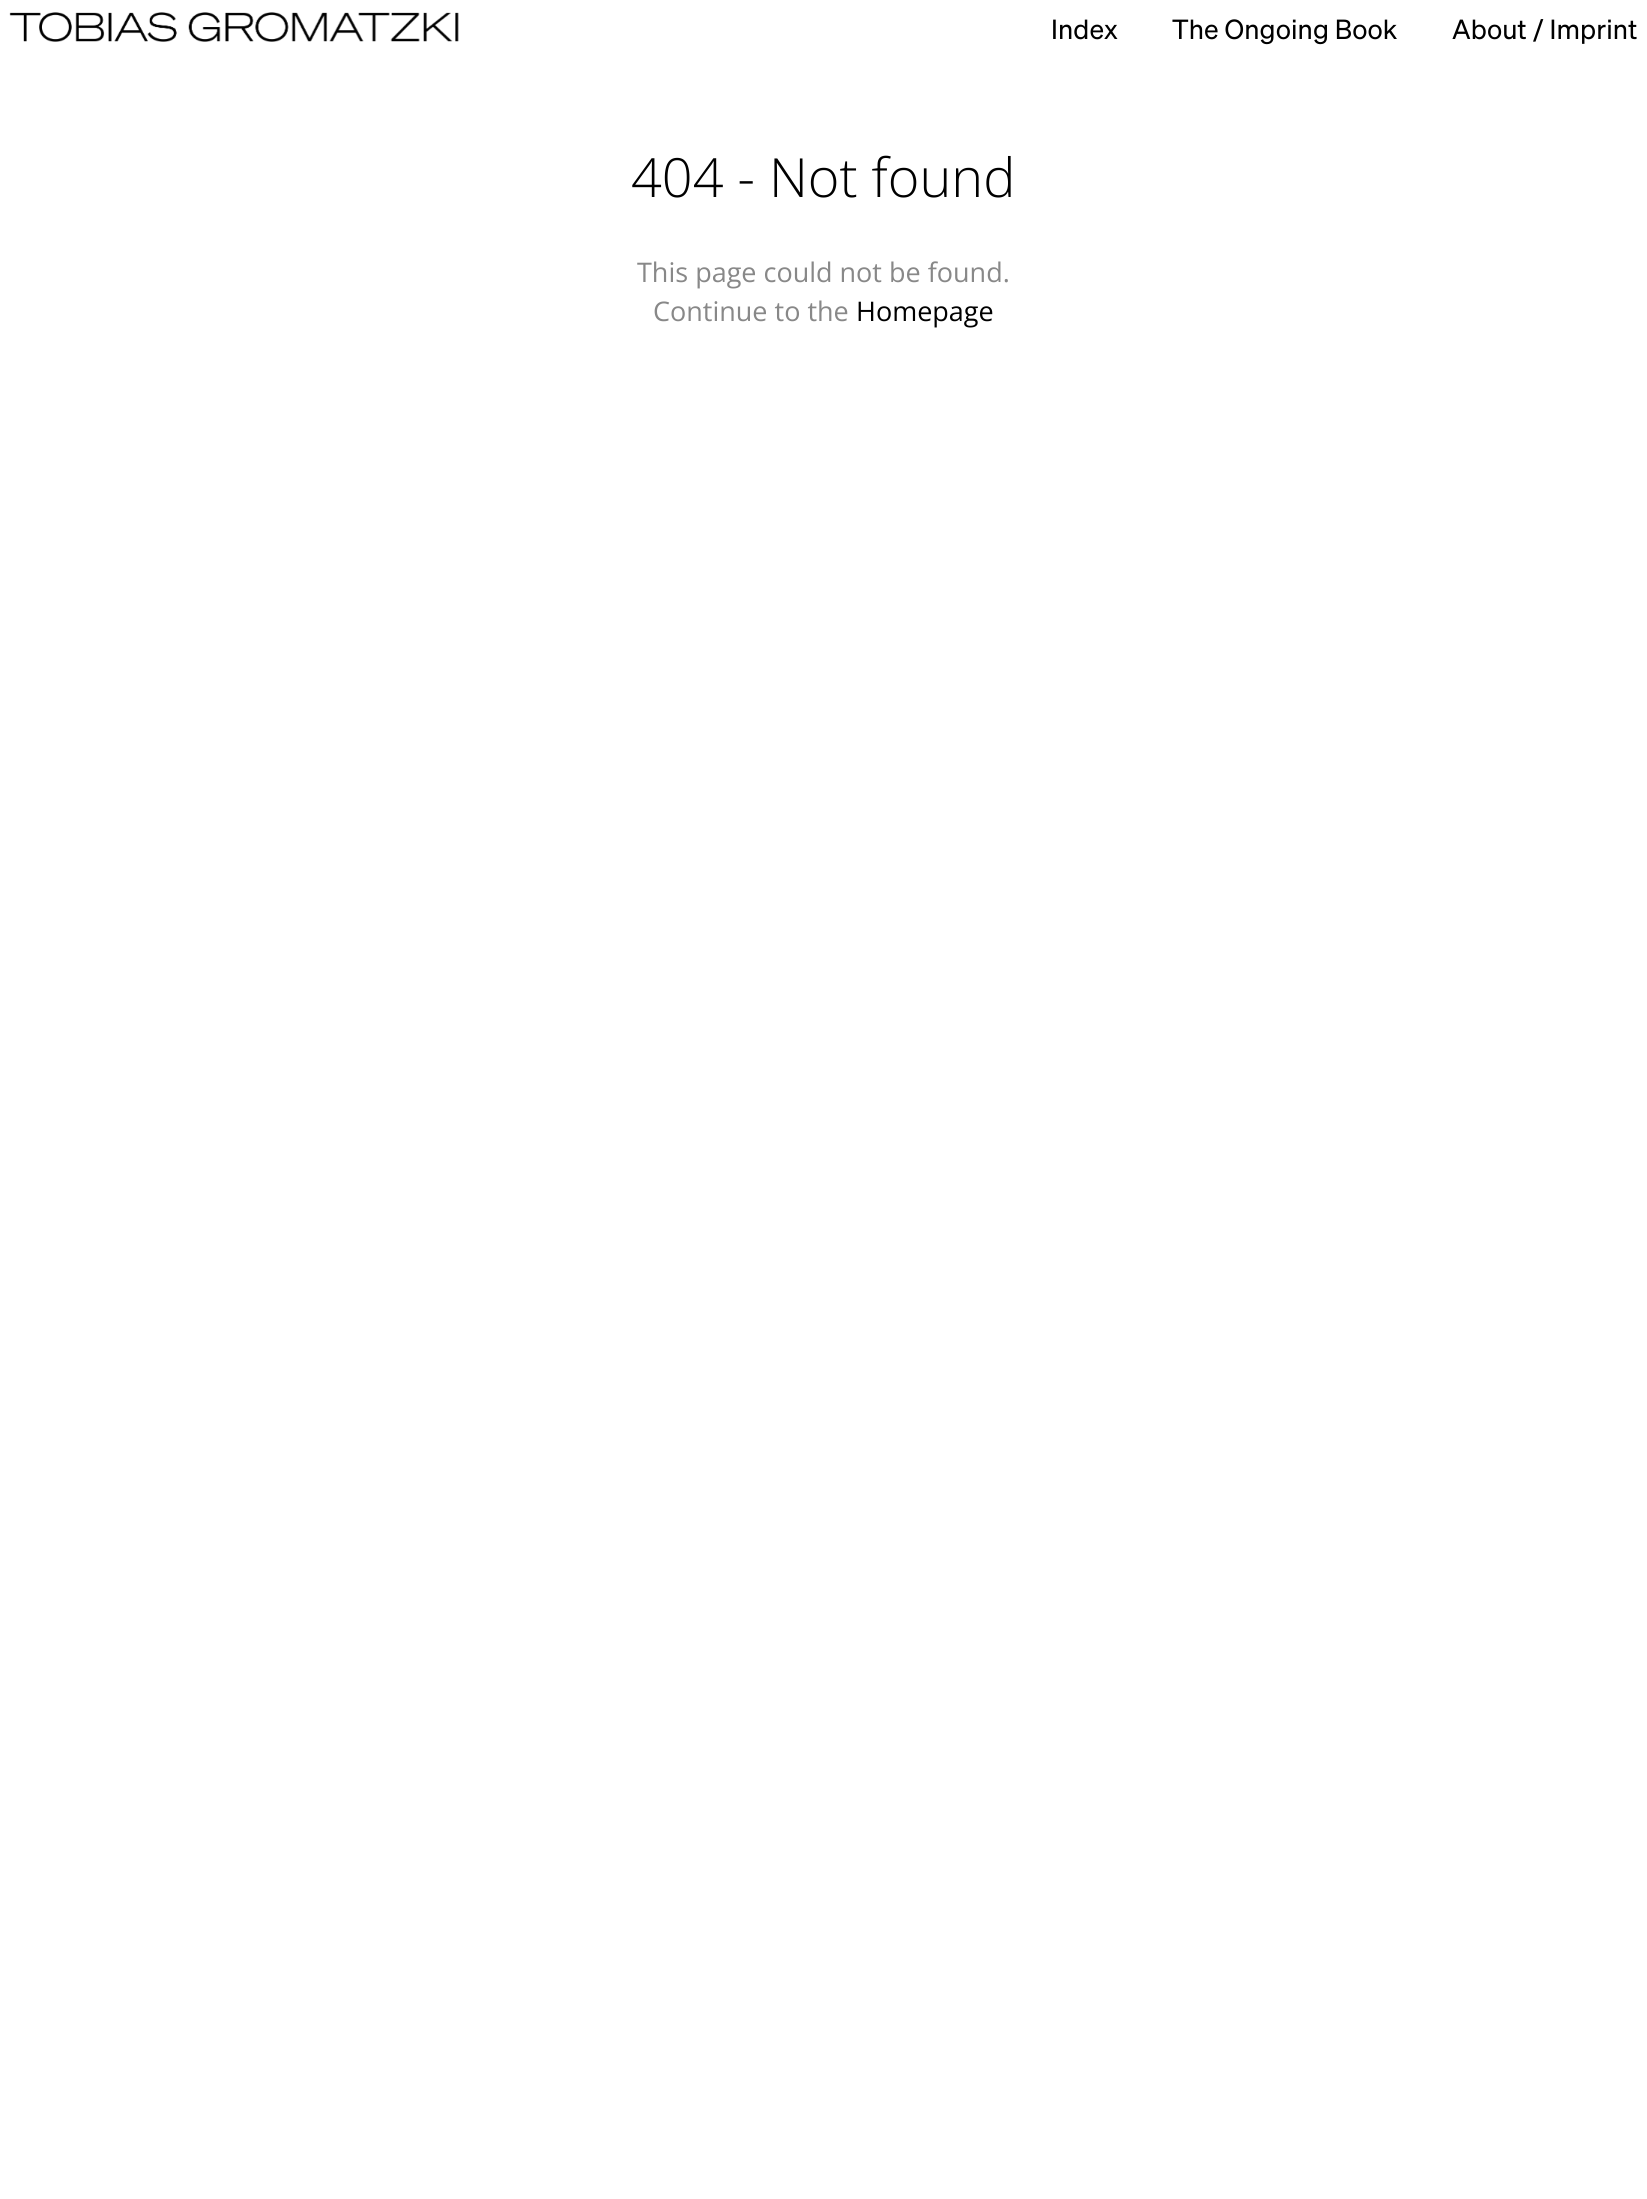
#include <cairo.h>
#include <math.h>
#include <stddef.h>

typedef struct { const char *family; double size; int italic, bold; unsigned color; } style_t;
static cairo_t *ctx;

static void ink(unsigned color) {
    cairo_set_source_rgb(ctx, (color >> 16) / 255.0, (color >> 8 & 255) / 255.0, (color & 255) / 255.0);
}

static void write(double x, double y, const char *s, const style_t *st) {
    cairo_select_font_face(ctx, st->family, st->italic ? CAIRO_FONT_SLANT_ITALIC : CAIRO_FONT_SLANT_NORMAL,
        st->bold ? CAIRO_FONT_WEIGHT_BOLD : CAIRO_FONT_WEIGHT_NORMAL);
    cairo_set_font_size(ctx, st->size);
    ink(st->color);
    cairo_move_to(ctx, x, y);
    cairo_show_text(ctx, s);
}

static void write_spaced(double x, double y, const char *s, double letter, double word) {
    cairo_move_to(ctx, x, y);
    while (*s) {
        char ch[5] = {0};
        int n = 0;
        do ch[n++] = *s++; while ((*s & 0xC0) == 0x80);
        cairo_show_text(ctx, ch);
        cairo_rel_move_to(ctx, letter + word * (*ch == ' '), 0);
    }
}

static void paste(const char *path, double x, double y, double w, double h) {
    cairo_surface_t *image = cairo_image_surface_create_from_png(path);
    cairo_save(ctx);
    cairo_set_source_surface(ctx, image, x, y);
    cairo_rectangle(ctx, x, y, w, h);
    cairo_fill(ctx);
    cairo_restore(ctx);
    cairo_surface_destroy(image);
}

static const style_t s1 = {"Open Sans Light", 54, 0, 0, 0x000000};
static const style_t s2 = {"Open Sans", 27, 0, 0, 0x888888};
static const style_t s3 = {"Open Sans", 27, 0, 0, 0x000000};

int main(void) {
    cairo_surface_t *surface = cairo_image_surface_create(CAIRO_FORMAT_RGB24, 1647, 2199);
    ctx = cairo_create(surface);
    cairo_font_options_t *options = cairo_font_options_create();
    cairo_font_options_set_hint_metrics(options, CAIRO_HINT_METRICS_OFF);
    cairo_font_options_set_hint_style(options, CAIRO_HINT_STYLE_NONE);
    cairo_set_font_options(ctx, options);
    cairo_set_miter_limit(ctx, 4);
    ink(0xffffff);
    cairo_paint(ctx);
    paste("pic1.png", 9, 12, 450, 30);
    cairo_select_font_face(ctx, "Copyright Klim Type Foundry", CAIRO_FONT_SLANT_NORMAL, CAIRO_FONT_WEIGHT_NORMAL);
    cairo_set_font_size(ctx, 27);
    ink(0x000000);
    write_spaced(1051, 39, "Index", 0.1, 0);
    write_spaced(1172, 39, "The Ongoing Book", 0.1, 0);
    write_spaced(1452, 39, "About / Imprint", 0.1, 0);
    write(631, 197, "404 - Not found", &s1);
    write(637, 282, "This page could not be found.", &s2);
    write(653, 321, "Continue to the", &s2);
    write(856, 321, "Homepage", &s3);
    cairo_surface_write_to_png(surface, "screenshot.png");
    cairo_font_options_destroy(options);
    cairo_destroy(ctx);
    cairo_surface_destroy(surface);
    return 0;
}
